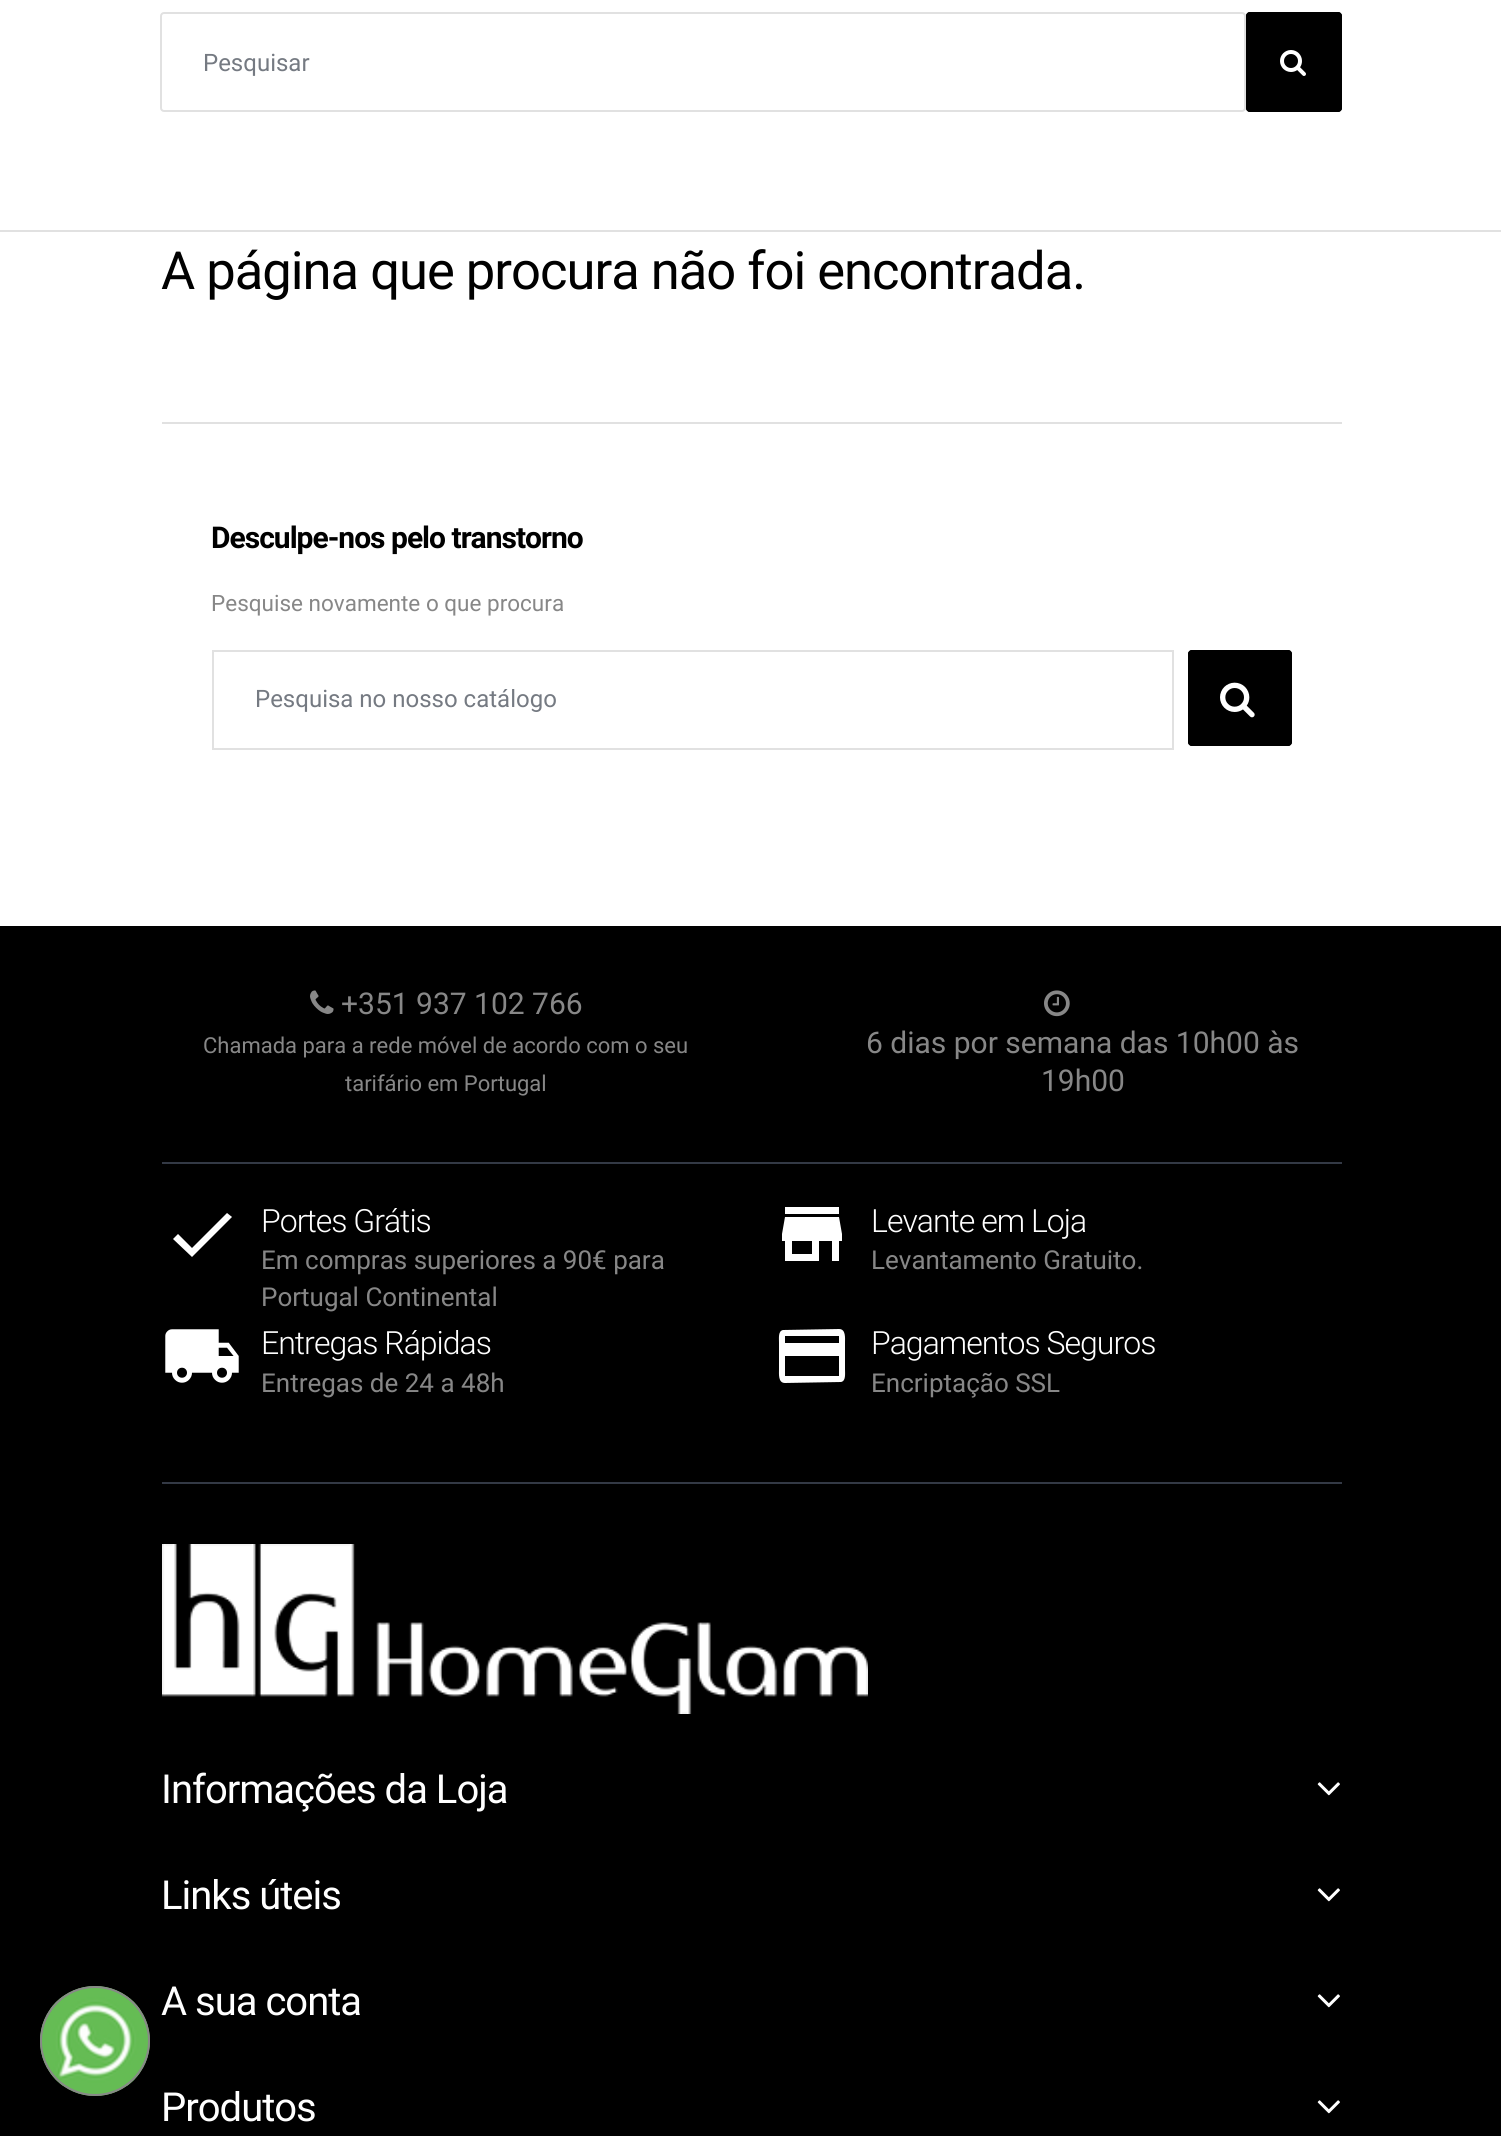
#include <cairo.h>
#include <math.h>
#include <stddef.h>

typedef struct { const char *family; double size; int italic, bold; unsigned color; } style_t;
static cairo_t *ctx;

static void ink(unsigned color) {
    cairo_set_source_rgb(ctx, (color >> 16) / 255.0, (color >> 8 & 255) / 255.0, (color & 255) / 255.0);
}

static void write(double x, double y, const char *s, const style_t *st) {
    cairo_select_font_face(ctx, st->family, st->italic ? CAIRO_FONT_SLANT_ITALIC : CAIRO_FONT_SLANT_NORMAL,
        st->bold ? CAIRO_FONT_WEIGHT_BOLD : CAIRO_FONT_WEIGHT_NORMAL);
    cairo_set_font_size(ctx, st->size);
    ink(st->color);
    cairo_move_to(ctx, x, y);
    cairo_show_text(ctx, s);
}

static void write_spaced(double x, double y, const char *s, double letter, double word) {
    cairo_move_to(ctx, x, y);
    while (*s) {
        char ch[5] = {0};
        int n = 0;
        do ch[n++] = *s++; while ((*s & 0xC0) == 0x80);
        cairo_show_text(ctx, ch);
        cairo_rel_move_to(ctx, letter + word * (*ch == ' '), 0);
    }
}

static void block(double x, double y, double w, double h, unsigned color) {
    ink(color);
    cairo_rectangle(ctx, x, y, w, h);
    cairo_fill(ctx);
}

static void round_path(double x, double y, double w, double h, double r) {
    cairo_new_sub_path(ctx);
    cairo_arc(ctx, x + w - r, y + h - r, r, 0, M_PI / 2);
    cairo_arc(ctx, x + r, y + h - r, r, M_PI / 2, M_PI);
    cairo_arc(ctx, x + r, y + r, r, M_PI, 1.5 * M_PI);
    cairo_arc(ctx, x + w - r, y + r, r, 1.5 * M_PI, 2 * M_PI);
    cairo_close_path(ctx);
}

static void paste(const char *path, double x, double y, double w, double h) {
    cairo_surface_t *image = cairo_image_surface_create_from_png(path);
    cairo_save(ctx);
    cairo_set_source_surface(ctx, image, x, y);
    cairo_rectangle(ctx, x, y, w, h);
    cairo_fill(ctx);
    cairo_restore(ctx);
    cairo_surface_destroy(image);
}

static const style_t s1 = {"Roboto", 24, 0, 0, 0x757a82};
static const style_t s2 = {"Roboto", 22.5, 0, 0, 0x878787};
static const style_t s3 = {"Roboto", 30, 0, 0, 0x878787};
static const style_t s4 = {"Roboto", 22, 0, 0, 0x878787};
static const style_t s5 = {"Roboto", 26, 0, 0, 0x878787};

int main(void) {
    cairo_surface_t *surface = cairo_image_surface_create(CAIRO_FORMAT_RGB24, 1501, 2136);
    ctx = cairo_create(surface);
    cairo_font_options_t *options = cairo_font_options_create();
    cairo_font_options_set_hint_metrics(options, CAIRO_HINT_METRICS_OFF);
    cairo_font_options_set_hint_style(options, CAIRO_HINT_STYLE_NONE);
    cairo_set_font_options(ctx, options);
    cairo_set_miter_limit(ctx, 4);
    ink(0xffffff);
    cairo_paint(ctx);
    block(0, 230, 1501, 2, 0xe1e1e1);
    round_path(161, 13, 1084, 98, 3);
    cairo_stroke(ctx);
    write(203, 71, "Pesquisar", &s1);
    round_path(1248, 14, 92, 96, 2);
    ink(0x000000);
    cairo_set_line_width(ctx, 4);
    cairo_stroke(ctx);
    round_path(1246, 12, 96, 100, 4);
    cairo_fill(ctx);
    paste("pic1.png", 1280, 50, 26, 26);
    block(162, 422, 1180, 2, 0xe1e1e1);
    cairo_set_font_size(ctx, 52.5);
    ink(0x000000);
    write_spaced(161, 289, "A página que procura não foi encontrada.", -1, 0);
    cairo_select_font_face(ctx, "Roboto", CAIRO_FONT_SLANT_NORMAL, CAIRO_FONT_WEIGHT_BOLD);
    cairo_set_font_size(ctx, 30);
    write_spaced(211, 548, "Desculpe-nos pelo transtorno", -1, 0);
    write(211, 611, "Pesquise novamente o que procura", &s2);
    cairo_rectangle(ctx, 213, 651, 960, 98);
    ink(0xe1e1e1);
    cairo_set_line_width(ctx, 2);
    cairo_stroke(ctx);
    write(255, 707, "Pesquisa no nosso catálogo", &s1);
    round_path(1190, 652, 100, 92, 2);
    ink(0x000000);
    cairo_set_line_width(ctx, 4);
    cairo_stroke(ctx);
    round_path(1188, 650, 104, 96, 4);
    cairo_fill(ctx);
    paste("pic2.png", 1220, 682, 35, 36);
    block(162, 926, 1180, 556, 0x000000);
    block(162, 1482, 1180, 2, 0x333945);
    block(0, 926, 162, 558, 0x000000);
    block(162, 1162, 1180, 2, 0x333945);
    paste("pic3.png", 310, 990, 24, 24);
    write(341, 1014, "+351 937 102 766", &s3);
    write(203, 1053, "Chamada para a rede móvel de acordo com o seu", &s4);
    write(345, 1091, "tarifário em Portugal", &s4);
    paste("pic4.png", 1044, 990, 26, 27);
    write(866, 1053, "6 dias por semana das 10h00 às", &s3);
    write(1041, 1091, "19h00", &s3);
    ink(0xffffff);
    cairo_new_path(ctx);
    cairo_move_to(ctx, 192, 1248);
    cairo_line_to(ctx, 227, 1213);
    cairo_line_to(ctx, 232, 1217);
    cairo_line_to(ctx, 192, 1257);
    cairo_line_to(ctx, 173, 1239);
    cairo_line_to(ctx, 178, 1234);
    cairo_close_path(ctx);
    cairo_fill(ctx);
    cairo_select_font_face(ctx, "Roboto Light", CAIRO_FONT_SLANT_NORMAL, CAIRO_FONT_WEIGHT_NORMAL);
    cairo_set_font_size(ctx, 32);
    write_spaced(261, 1232, "Portes Grátis", -1, 0);
    write(261, 1269, "Em compras superiores a 90€ para", &s5);
    write(261, 1306, "Portugal Continental", &s5);
    ink(0xffffff);
    cairo_new_path(ctx);
    cairo_move_to(ctx, 812, 1254);
    cairo_line_to(ctx, 812, 1241);
    cairo_line_to(ctx, 792, 1241);
    cairo_line_to(ctx, 792, 1254);
    cairo_close_path(ctx);
    cairo_move_to(ctx, 842, 1241);
    cairo_line_to(ctx, 839, 1241);
    cairo_line_to(ctx, 839, 1261);
    cairo_line_to(ctx, 832, 1261);
    cairo_line_to(ctx, 832, 1241);
    cairo_line_to(ctx, 819, 1241);
    cairo_line_to(ctx, 819, 1261);
    cairo_line_to(ctx, 785, 1261);
    cairo_line_to(ctx, 785, 1241);
    cairo_line_to(ctx, 782, 1241);
    cairo_line_to(ctx, 782, 1234);
    cairo_line_to(ctx, 785, 1217);
    cairo_line_to(ctx, 839, 1217);
    cairo_line_to(ctx, 842, 1234);
    cairo_close_path(ctx);
    cairo_move_to(ctx, 839, 1207);
    cairo_line_to(ctx, 839, 1214);
    cairo_line_to(ctx, 785, 1214);
    cairo_line_to(ctx, 785, 1207);
    cairo_close_path(ctx);
    cairo_fill(ctx);
    cairo_select_font_face(ctx, "Roboto Light", CAIRO_FONT_SLANT_NORMAL, CAIRO_FONT_WEIGHT_NORMAL);
    cairo_set_font_size(ctx, 32);
    write_spaced(871, 1232, "Levante em Loja", -1, 0);
    write(871, 1269, "Levantamento Gratuito.", &s5);
    paste("pic5.png", 165, 1329, 74, 54);
    cairo_select_font_face(ctx, "Roboto Light", CAIRO_FONT_SLANT_NORMAL, CAIRO_FONT_WEIGHT_NORMAL);
    cairo_set_font_size(ctx, 32);
    ink(0xffffff);
    write_spaced(261, 1354, "Entregas Rápidas", -1, 0);
    write(261, 1392, "Entregas de 24 a 48h", &s5);
    ink(0xffffff);
    cairo_new_path(ctx);
    cairo_move_to(ctx, 839, 1343);
    cairo_line_to(ctx, 839, 1336);
    cairo_line_to(ctx, 785, 1336);
    cairo_line_to(ctx, 785, 1343);
    cairo_close_path(ctx);
    cairo_move_to(ctx, 839, 1376);
    cairo_line_to(ctx, 839, 1356);
    cairo_line_to(ctx, 785, 1356);
    cairo_line_to(ctx, 785, 1376);
    cairo_close_path(ctx);
    cairo_move_to(ctx, 839, 1329);
    cairo_curve_to(ctx, 846, 1329, 845, 1338, 845, 1343);
    cairo_line_to(ctx, 845, 1369);
    cairo_curve_to(ctx, 845, 1374, 846, 1381, 841, 1382);
    cairo_line_to(ctx, 785, 1383);
    cairo_curve_to(ctx, 778, 1383, 779, 1374, 779, 1369);
    cairo_line_to(ctx, 779, 1343);
    cairo_curve_to(ctx, 779, 1338, 778, 1331, 783, 1330);
    cairo_close_path(ctx);
    cairo_fill(ctx);
    cairo_select_font_face(ctx, "Roboto Light", CAIRO_FONT_SLANT_NORMAL, CAIRO_FONT_WEIGHT_NORMAL);
    cairo_set_font_size(ctx, 32);
    write_spaced(871, 1354, "Pagamentos Seguros", -1, 0);
    write(871, 1392, "Encriptação SSL", &s5);
    block(1342, 926, 159, 558, 0x000000);
    block(0, 1484, 1501, 652, 0x000000);
    ink(0x65bc54);
    cairo_new_path(ctx);
    cairo_arc(ctx, 95, 2041, 55, 0, 2 * M_PI);
    cairo_fill(ctx);
    paste("pic6.png", 50, 1996, 90, 90);
    cairo_arc(ctx, 95, 2041, 54, 0, 2 * M_PI);
    ink(0x888888);
    cairo_set_line_width(ctx, 2);
    cairo_stroke(ctx);
    paste("pic7.png", 162, 1544, 706, 170);
    cairo_set_font_size(ctx, 40);
    ink(0xffffff);
    write_spaced(161, 1803, "Informações da Loja", -1, 0);
    paste("pic8.png", 1317, 1782, 23, 14);
    write_spaced(161, 1909, "Links úteis", -1, 0);
    paste("pic8.png", 1317, 1888, 23, 14);
    write_spaced(161, 2015, "A sua conta", -1, 0);
    paste("pic8.png", 1317, 1994, 23, 14);
    write_spaced(161, 2121, "Produtos", -1, 0);
    paste("pic8.png", 1317, 2100, 23, 14);
    cairo_surface_write_to_png(surface, "screenshot.png");
    cairo_font_options_destroy(options);
    cairo_destroy(ctx);
    cairo_surface_destroy(surface);
    return 0;
}
